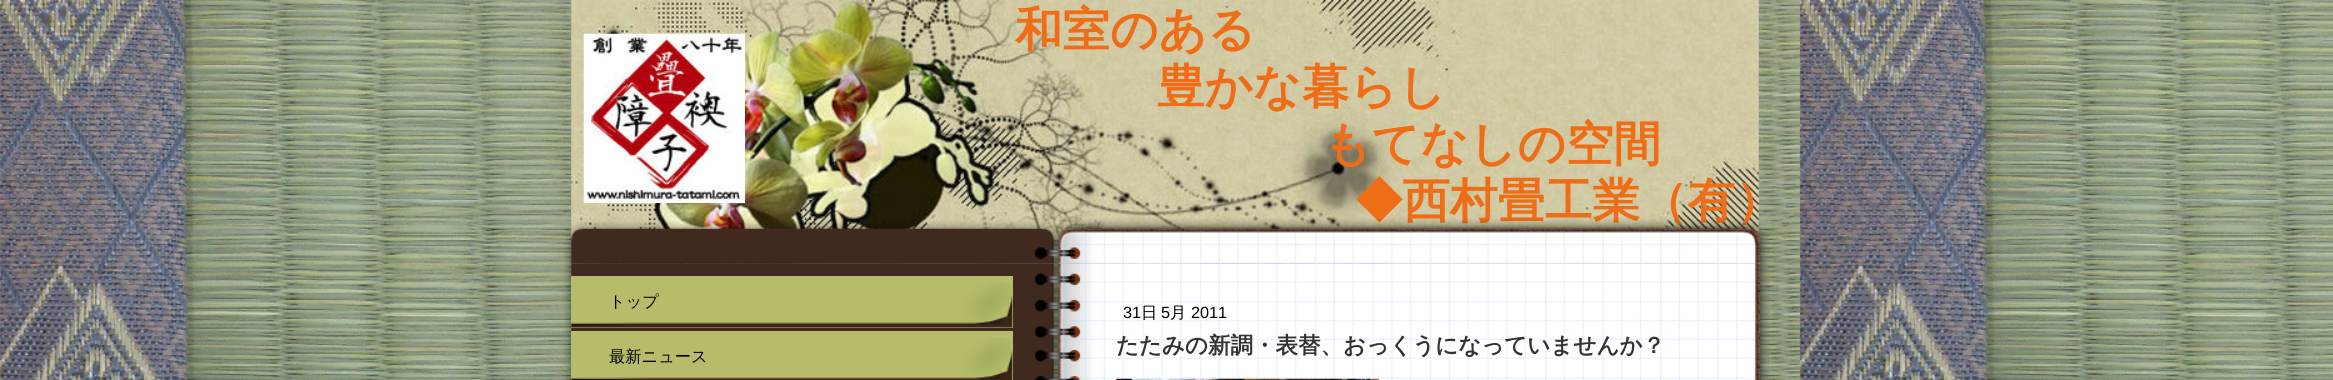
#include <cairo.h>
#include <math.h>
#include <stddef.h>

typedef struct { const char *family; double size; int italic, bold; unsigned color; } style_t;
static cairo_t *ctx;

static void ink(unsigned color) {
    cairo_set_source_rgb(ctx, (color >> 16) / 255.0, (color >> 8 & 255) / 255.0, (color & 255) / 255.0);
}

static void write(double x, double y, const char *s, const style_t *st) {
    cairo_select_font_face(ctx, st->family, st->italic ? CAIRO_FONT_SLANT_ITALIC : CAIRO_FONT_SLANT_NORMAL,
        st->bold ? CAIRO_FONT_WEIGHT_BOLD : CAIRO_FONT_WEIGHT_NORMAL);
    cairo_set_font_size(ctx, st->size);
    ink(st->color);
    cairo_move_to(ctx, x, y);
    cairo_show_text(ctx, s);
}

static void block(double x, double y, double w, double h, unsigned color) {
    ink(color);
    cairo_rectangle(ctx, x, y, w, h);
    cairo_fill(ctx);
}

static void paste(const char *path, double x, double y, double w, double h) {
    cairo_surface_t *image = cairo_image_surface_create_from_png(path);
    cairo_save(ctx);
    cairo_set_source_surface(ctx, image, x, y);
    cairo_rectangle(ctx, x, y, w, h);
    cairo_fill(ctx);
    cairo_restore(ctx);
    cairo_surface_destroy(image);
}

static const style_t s1 = {"WenQuanYi Zen Hei", 47.5, 0, 1, 0xee6d16};
static const style_t s2 = {"WenQuanYi Zen Hei Medium", 16.25, 0, 0, 0x000000};
static const style_t s3 = {"Liberation Sans", 16.25, 0, 0, 0x000000};
static const style_t s4 = {"WenQuanYi Zen Hei", 22.5, 0, 1, 0x333333};

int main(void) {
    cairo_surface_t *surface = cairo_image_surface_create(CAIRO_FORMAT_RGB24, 2333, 380);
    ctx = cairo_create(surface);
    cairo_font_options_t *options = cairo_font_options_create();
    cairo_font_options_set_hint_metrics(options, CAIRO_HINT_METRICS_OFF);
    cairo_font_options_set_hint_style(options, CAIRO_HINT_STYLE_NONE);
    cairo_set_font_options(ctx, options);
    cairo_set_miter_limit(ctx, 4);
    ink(0xffffff);
    cairo_paint(ctx);
    paste("pic1.png", 0, 0, 2333, 380);
    block(571, 0, 1188, 239, 0xbda4a4);
    paste("pic2.png", 571, 0, 1188, 239);
    block(584, 202, 161, 1, 0xffffff);
    paste("pic3.png", 583, 33, 162, 170);
    write(1015, 46, "和室のある", &s1);
    write(1157, 103, "豊かな暮らし", &s1);
    write(1323, 160, "もてなしの空間", &s1);
    write(1355, 217, "◆西村畳工業（有）", &s1);
    paste("pic5.png", 563, 263, 1207, 117);
    paste("pic4.png", 563, 218, 1207, 46);
    block(571, 276, 442, 52, 0xb7bc6a);
    paste("pic6.png", 571, 283, 442, 45);
    write(609, 307, "トップ", &s2);
    block(571, 331, 442, 49, 0xb7bc6a);
    paste("pic7.png", 571, 338, 442, 42);
    write(609, 362, "最新ニュース", &s2);
    write(1123, 318, "31", &s3);
    write(1141, 318, "日", &s2);
    write(1161, 318, "5", &s3);
    write(1170, 318, "月", &s2);
    write(1191, 318, "2011", &s3);
    write(1116, 353, "たたみの新調・表替、おっくうになっていませんか？", &s4);
    paste("pic8.png", 1116, 378, 263, 2);
    cairo_surface_write_to_png(surface, "screenshot.png");
    cairo_font_options_destroy(options);
    cairo_destroy(ctx);
    cairo_surface_destroy(surface);
    return 0;
}
